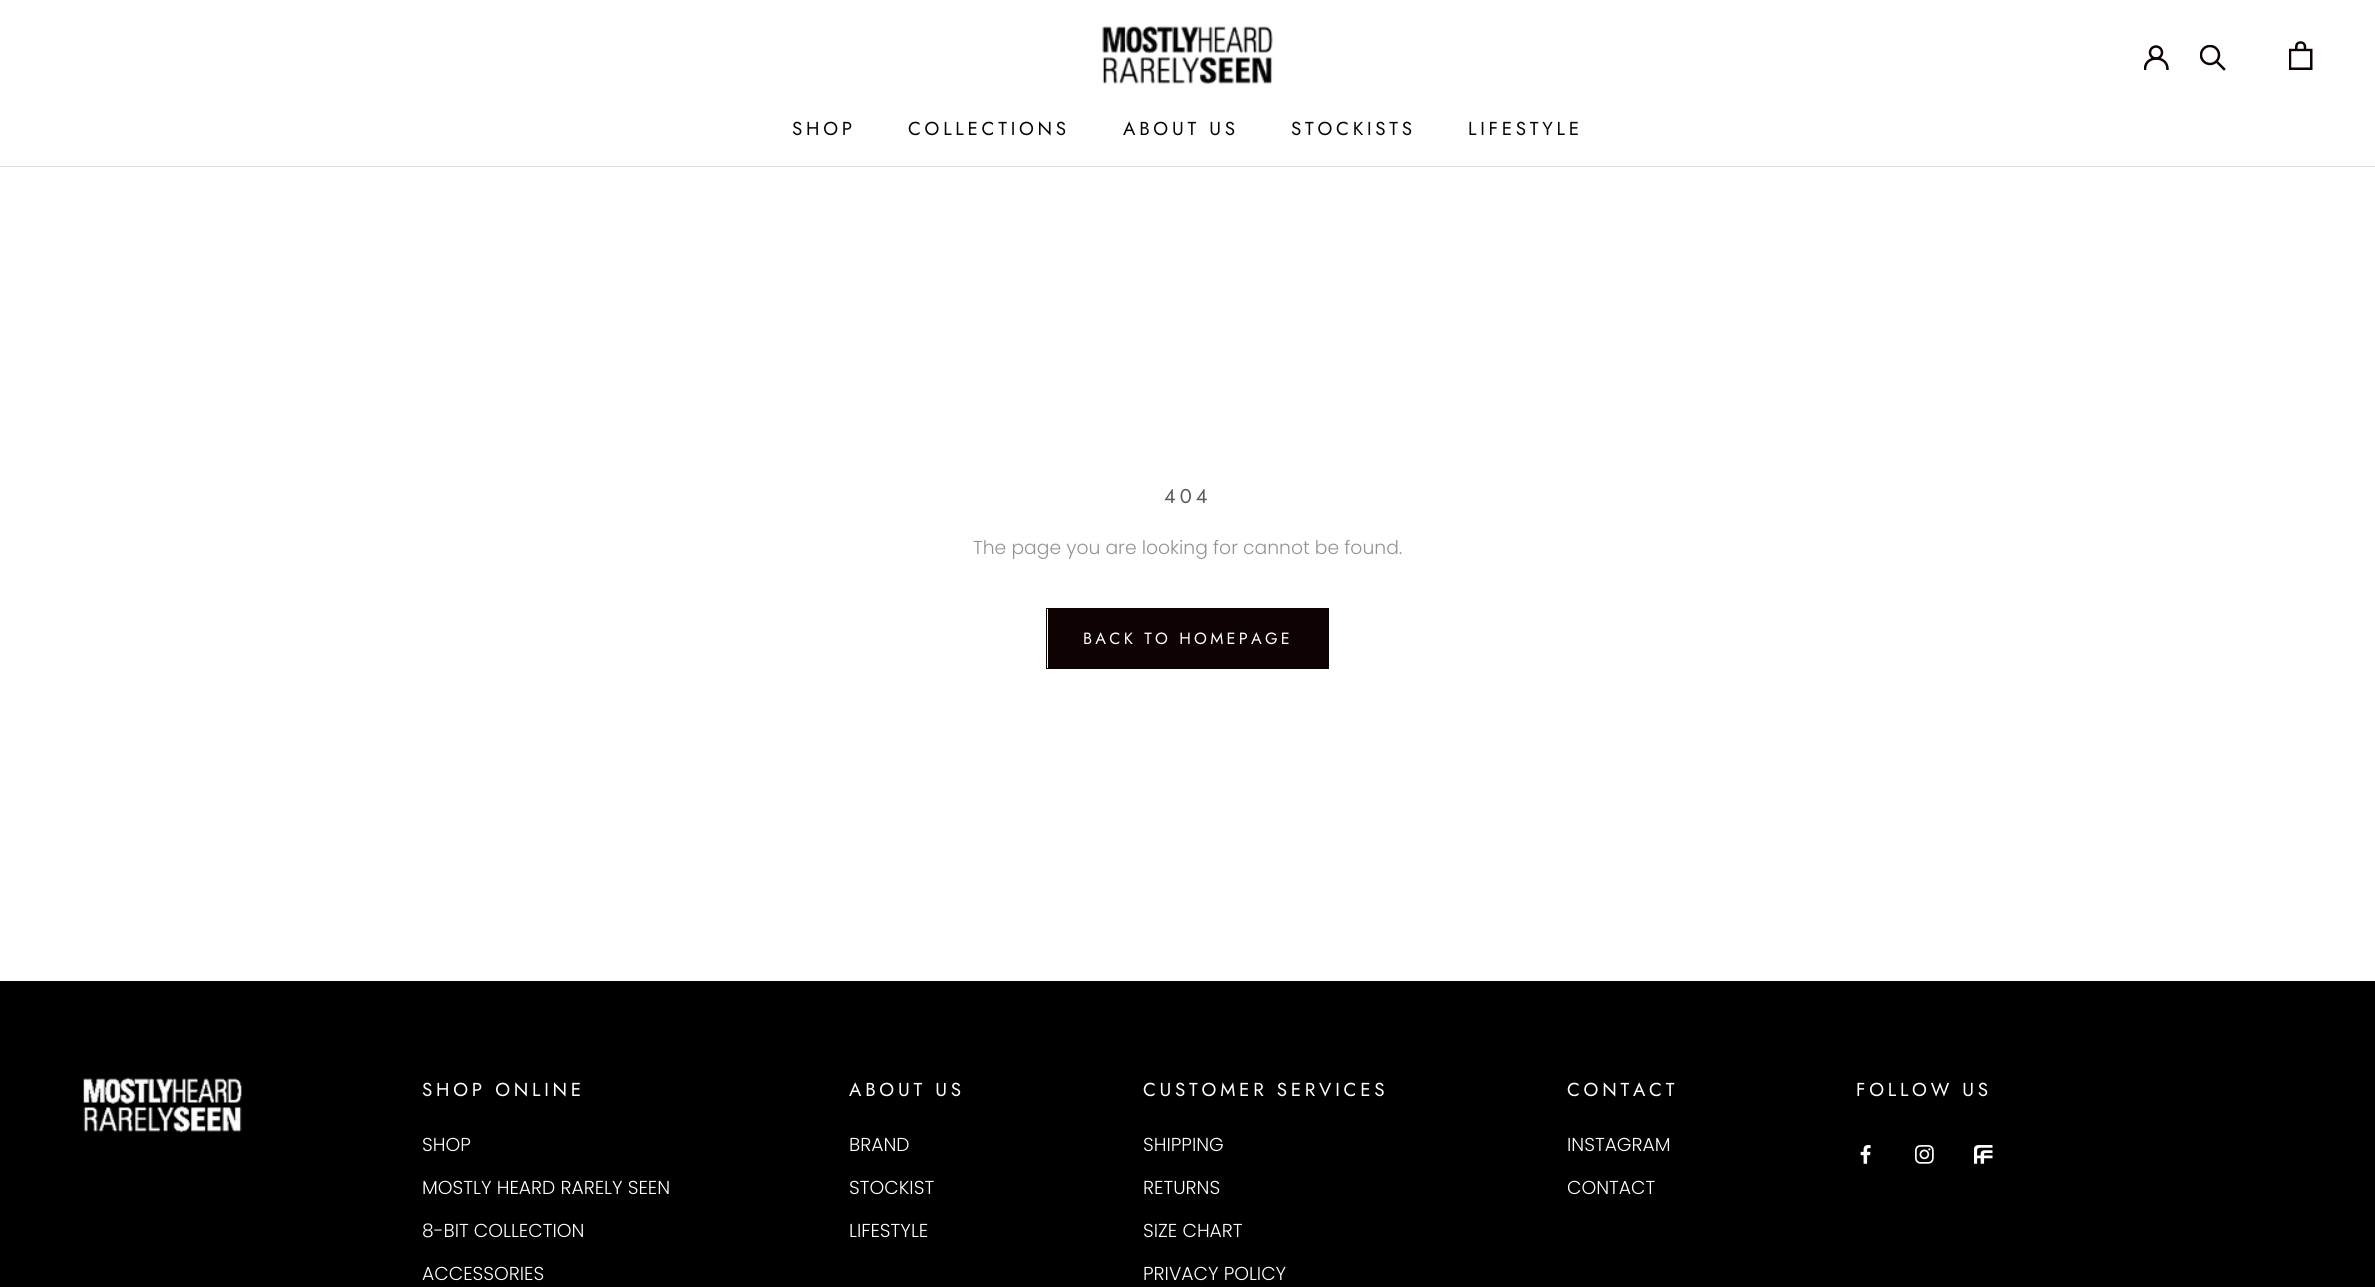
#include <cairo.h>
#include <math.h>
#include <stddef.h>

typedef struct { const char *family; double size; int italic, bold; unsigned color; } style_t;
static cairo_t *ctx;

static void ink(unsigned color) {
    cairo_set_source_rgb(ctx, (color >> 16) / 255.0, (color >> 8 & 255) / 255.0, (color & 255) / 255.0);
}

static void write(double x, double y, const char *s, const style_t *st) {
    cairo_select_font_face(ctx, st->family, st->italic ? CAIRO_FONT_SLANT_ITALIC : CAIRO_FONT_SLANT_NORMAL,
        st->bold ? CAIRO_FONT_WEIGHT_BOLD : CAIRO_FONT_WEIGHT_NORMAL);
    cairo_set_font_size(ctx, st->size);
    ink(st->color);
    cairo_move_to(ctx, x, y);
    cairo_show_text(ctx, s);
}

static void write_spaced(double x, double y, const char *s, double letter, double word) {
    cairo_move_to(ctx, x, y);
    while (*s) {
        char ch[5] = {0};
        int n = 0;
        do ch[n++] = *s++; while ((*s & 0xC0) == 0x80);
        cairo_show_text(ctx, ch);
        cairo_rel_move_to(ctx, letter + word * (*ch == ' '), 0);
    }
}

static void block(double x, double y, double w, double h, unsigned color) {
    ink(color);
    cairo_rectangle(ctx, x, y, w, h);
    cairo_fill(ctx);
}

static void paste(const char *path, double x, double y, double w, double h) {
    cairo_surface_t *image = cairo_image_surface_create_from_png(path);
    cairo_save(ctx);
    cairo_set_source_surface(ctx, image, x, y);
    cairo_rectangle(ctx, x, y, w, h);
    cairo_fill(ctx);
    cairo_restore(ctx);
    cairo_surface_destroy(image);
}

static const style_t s1 = {"Poppins Light", 18.75, 0, 0, 0x939393};
static const style_t s2 = {"Poppins Light", 18.75, 0, 0, 0xffffff};

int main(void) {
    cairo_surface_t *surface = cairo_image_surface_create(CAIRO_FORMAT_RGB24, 2375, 1287);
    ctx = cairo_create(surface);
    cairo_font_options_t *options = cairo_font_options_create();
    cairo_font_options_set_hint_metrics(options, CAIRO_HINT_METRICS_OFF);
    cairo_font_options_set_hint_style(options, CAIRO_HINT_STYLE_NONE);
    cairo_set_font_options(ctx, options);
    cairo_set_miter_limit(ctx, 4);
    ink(0xffffff);
    cairo_paint(ctx);
    block(0, 166, 2375, 1, 0xdbd9d9);
    paste("pic1.png", 1102, 26, 171, 58);
    cairo_save(ctx);
    cairo_rectangle(ctx, 2144, 45, 25, 25);
    cairo_clip(ctx);
    cairo_new_path(ctx);
    cairo_move_to(ctx, 2145, 69);
    cairo_curve_to(ctx, 2145, 55, 2167.5, 55, 2167.5, 69);
    ink(0x0e0202);
    cairo_set_line_width(ctx, 2.5);
    cairo_set_line_cap(ctx, CAIRO_LINE_CAP_SQUARE);
    cairo_stroke(ctx);
    cairo_restore(ctx);
    cairo_arc(ctx, 2156, 52.5, 6, 0, 2 * M_PI);
    ink(0x0e0202);
    cairo_set_line_width(ctx, 2.5);
    cairo_stroke(ctx);
    cairo_new_path(ctx);
    cairo_move_to(ctx, 2224, 69);
    cairo_line_to(ctx, 2216.5, 61.5);
    cairo_set_line_cap(ctx, CAIRO_LINE_CAP_SQUARE);
    cairo_stroke(ctx);
    cairo_save(ctx);
    cairo_rectangle(ctx, 2200, 45, 26, 26);
    cairo_clip(ctx);
    cairo_arc(ctx, 2210, 55, 9, 0, 2 * M_PI);
    cairo_set_line_cap(ctx, CAIRO_LINE_CAP_BUTT);
    cairo_stroke(ctx);
    cairo_restore(ctx);
    paste("pic2.png", 2289, 41, 24, 29);
    cairo_select_font_face(ctx, "Jost", CAIRO_FONT_SLANT_NORMAL, CAIRO_FONT_WEIGHT_NORMAL);
    cairo_set_font_size(ctx, 18.75);
    write_spaced(792, 135, "SHOP", 3.75, 0);
    write_spaced(908, 135, "COLLECTIONS", 3.75, 0);
    write_spaced(1123, 135, "ABOUT US", 3.75, 0);
    write_spaced(1291, 135, "STOCKISTS", 3.75, 0);
    write_spaced(1468, 135, "LIFESTYLE", 3.75, 0);
    cairo_set_font_size(ctx, 20);
    ink(0x5c5c5c);
    write_spaced(1164, 503, "404", 4, 0);
    write(973, 554, "The page you are looking for cannot be found.", &s1);
    cairo_rectangle(ctx, 1046.5, 608.5, 282, 60);
    ink(0x0e0202);
    cairo_set_line_width(ctx, 1);
    cairo_set_line_cap(ctx, CAIRO_LINE_CAP_BUTT);
    cairo_stroke(ctx);
    block(1048, 609, 280, 59, 0x0e0202);
    cairo_select_font_face(ctx, "Jost", CAIRO_FONT_SLANT_NORMAL, CAIRO_FONT_WEIGHT_NORMAL);
    cairo_set_font_size(ctx, 16.25);
    ink(0xffffff);
    write_spaced(1083, 644, "BACK TO HOMEPAGE", 3.25, 0);
    block(0, 981, 2375, 306, 0x000000);
    paste("pic3.png", 83, 1077, 159, 56);
    cairo_set_font_size(ctx, 18.75);
    ink(0xffffff);
    write_spaced(422, 1096, "SHOP ONLINE", 3.75, 0);
    write(422, 1151, "SHOP", &s2);
    write(422, 1194, "MOSTLY HEARD RARELY SEEN", &s2);
    write(422, 1237, "8-BIT COLLECTION", &s2);
    write(422, 1280, "ACCESSORIES", &s2);
    cairo_select_font_face(ctx, "Jost", CAIRO_FONT_SLANT_NORMAL, CAIRO_FONT_WEIGHT_NORMAL);
    write_spaced(849, 1096, "ABOUT US", 3.75, 0);
    write(849, 1151, "BRAND", &s2);
    write(849, 1194, "STOCKIST", &s2);
    write(849, 1237, "LIFESTYLE", &s2);
    cairo_select_font_face(ctx, "Jost", CAIRO_FONT_SLANT_NORMAL, CAIRO_FONT_WEIGHT_NORMAL);
    write_spaced(1143, 1096, "CUSTOMER SERVICES", 3.75, 0);
    write(1143, 1151, "SHIPPING", &s2);
    write(1143, 1194, "RETURNS", &s2);
    write(1143, 1237, "SIZE CHART", &s2);
    write(1143, 1280, "PRIVACY POLICY", &s2);
    cairo_select_font_face(ctx, "Jost", CAIRO_FONT_SLANT_NORMAL, CAIRO_FONT_WEIGHT_NORMAL);
    write_spaced(1567, 1096, "CONTACT", 3.75, 0);
    write(1567, 1151, "INSTAGRAM", &s2);
    write(1567, 1194, "CONTACT", &s2);
    cairo_select_font_face(ctx, "Jost", CAIRO_FONT_SLANT_NORMAL, CAIRO_FONT_WEIGHT_NORMAL);
    write_spaced(1856, 1096, "FOLLOW US", 3.75, 0);
    paste("pic4.png", 1860, 1145, 11, 19);
    paste("pic5.png", 1915, 1145, 19, 19);
    paste("pic6.png", 1974, 1145, 19, 19);
    cairo_surface_write_to_png(surface, "screenshot.png");
    cairo_font_options_destroy(options);
    cairo_destroy(ctx);
    cairo_surface_destroy(surface);
    return 0;
}
